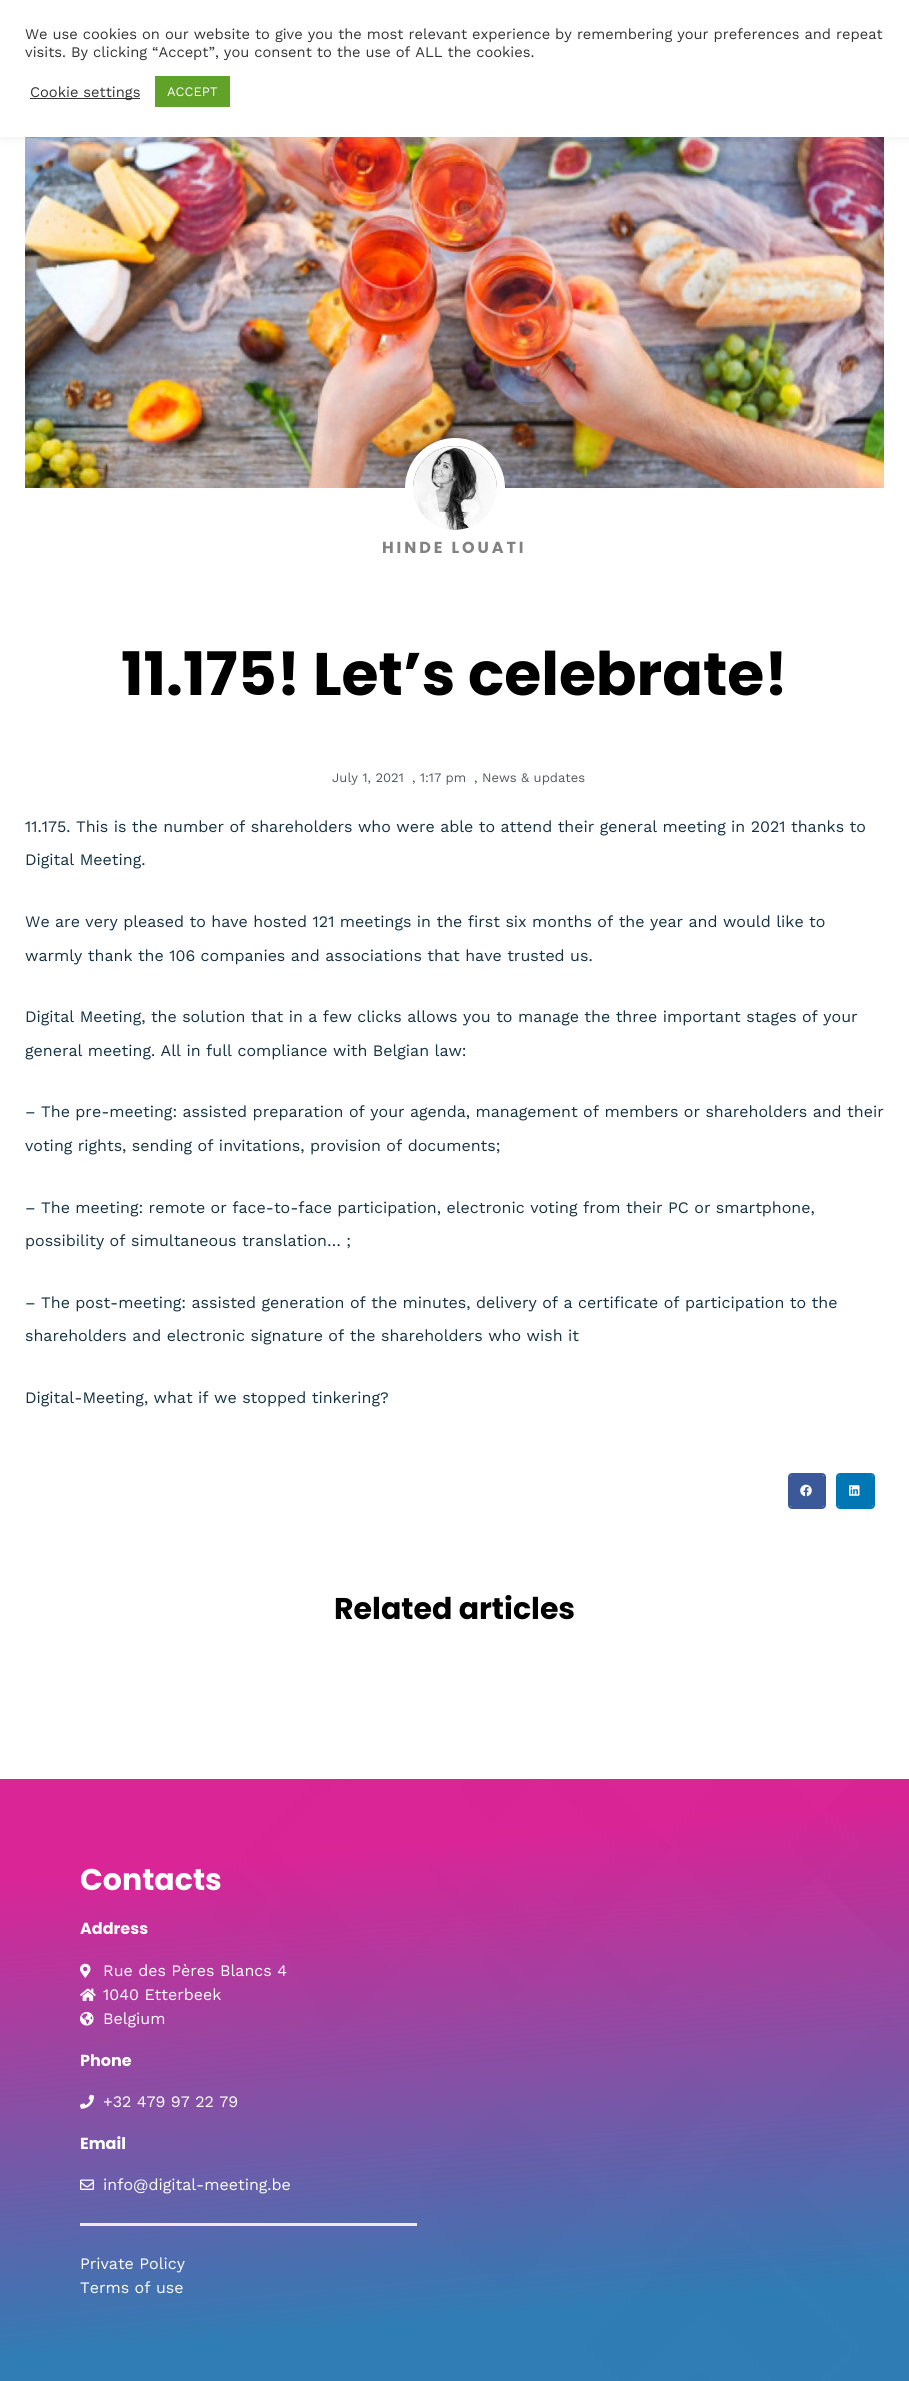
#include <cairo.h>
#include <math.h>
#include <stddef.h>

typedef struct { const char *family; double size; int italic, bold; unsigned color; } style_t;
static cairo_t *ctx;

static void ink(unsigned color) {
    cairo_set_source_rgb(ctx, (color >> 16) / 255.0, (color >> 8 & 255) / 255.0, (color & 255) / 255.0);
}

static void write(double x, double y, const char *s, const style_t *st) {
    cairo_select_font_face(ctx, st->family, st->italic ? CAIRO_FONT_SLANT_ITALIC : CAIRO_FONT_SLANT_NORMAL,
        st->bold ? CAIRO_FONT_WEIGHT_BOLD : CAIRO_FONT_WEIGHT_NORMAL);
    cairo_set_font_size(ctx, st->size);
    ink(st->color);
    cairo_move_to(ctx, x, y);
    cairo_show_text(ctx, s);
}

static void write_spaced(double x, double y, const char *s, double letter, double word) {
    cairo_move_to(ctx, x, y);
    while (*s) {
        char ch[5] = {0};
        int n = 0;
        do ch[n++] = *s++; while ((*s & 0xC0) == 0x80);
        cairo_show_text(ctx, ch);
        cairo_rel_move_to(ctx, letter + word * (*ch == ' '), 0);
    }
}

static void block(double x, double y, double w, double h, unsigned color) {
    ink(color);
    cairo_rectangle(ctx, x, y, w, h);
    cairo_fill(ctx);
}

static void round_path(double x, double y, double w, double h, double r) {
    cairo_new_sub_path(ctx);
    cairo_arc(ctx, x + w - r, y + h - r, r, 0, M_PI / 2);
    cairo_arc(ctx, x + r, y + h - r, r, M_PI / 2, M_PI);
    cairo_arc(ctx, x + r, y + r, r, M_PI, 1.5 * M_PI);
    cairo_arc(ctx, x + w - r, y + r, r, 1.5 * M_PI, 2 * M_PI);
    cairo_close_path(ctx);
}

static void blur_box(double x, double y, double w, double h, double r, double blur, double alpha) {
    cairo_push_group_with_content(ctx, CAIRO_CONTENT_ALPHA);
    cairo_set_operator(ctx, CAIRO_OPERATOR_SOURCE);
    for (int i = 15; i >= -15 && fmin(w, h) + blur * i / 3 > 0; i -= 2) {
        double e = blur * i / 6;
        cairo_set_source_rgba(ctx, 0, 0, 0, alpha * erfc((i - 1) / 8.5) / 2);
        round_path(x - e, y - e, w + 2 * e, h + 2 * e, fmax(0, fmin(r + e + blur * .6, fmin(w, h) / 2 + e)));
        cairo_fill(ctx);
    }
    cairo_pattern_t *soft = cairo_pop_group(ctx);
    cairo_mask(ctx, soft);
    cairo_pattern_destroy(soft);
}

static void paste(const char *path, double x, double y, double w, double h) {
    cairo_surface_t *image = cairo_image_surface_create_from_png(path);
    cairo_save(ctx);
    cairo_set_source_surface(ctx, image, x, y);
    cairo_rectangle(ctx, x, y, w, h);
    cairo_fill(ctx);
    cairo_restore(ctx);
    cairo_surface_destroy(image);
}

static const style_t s1 = {"Work Sans", 14.67, 0, 0, 0x333333};
static const style_t s2 = {"Work Sans", 13, 0, 0, 0xffffff};
static const style_t s3 = {"Poppins", 60, 0, 1, 0x000000};
static const style_t s4 = {"Work Sans", 13, 0, 0, 0x54595f};
static const style_t s5 = {"Work Sans", 16, 0, 0, 0x153243};
static const style_t s6 = {"Poppins", 30, 0, 1, 0x000000};
static const style_t s7 = {"Poppins", 30, 0, 1, 0xffffff};
static const style_t s8 = {"Poppins", 16, 0, 1, 0xffffff};
static const style_t s9 = {"Work Sans", 16, 0, 0, 0xffffff};

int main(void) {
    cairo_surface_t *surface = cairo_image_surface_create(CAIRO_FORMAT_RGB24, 909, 2381);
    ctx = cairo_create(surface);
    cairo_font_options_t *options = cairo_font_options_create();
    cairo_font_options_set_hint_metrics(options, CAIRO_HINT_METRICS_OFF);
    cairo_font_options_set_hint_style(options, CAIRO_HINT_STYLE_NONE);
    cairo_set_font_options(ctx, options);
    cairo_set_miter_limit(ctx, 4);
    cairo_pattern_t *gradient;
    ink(0xffffff);
    cairo_paint(ctx);
    paste("pic1.png", 25, 137, 859, 351);
    ink(0xacabab);
    blur_box(0, -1, 909, 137, 0, 5, 0.3);
    block(0, 0, 909, 137, 0xffffff);
    write(25, 39, "We use cookies on our website to give you the most relevant experience by remembering your preferences and repeat", &s1);
    write(25, 57, "visits. By clicking “Accept”, you consent to the use of ALL the cookies.", &s1);
    block(30, 98, 110, 1, 0x333333);
    write(30, 97, "Cookie settings", &s1);
    block(155, 76, 75, 31, 0x61a229);
    write(167, 96, "ACCEPT", &s2);
    cairo_new_path(ctx);
    cairo_arc(ctx, 455, 488, 46, 0, 2 * M_PI);
    cairo_set_line_width(ctx, 8);
    cairo_stroke(ctx);
    paste("pic2.png", 413, 446, 84, 84);
    cairo_select_font_face(ctx, "Poppins", CAIRO_FONT_SLANT_NORMAL, CAIRO_FONT_WEIGHT_BOLD);
    cairo_set_font_size(ctx, 16);
    ink(0x828282);
    write_spaced(382, 553, "HINDE LOUATI", 2.9, 0);
    write(121, 695, "11.175! Let’s celebrate!", &s3);
    write(332, 782, "July 1, 2021", &s4);
    write(412, 782, ", 1:17 pm", &s4);
    write(474, 782, ", News & updates", &s4);
    write(25, 832, "11.175. This is the number of shareholders who were able to attend their general meeting in 2021 thanks to", &s5);
    write(25, 865, "Digital Meeting.", &s5);
    write(25, 927, "We are very pleased to have hosted 121 meetings in the first six months of the year and would like to", &s5);
    write(25, 961, "warmly thank the 106 companies and associations that have trusted us.", &s5);
    write(25, 1022, "Digital Meeting, the solution that in a few clicks allows you to manage the three important stages of your", &s5);
    write(25, 1056, "general meeting. All in full compliance with Belgian law:", &s5);
    write(25, 1117, "– The pre-meeting: assisted preparation of your agenda, management of members or shareholders and their", &s5);
    write(25, 1151, "voting rights, sending of invitations, provision of documents;", &s5);
    write(25, 1213, "– The meeting: remote or face-to-face participation, electronic voting from their PC or smartphone,", &s5);
    write(25, 1246, "possibility of simultaneous translation… ;", &s5);
    write(25, 1308, "– The post-meeting: assisted generation of the minutes, delivery of a certificate of participation to the", &s5);
    write(25, 1341, "shareholders and electronic signature of the shareholders who wish it", &s5);
    write(25, 1403, "Digital-Meeting, what if we stopped tinkering?", &s5);
    round_path(789, 1474, 36, 34, 3);
    ink(0x3b5998);
    cairo_set_line_width(ctx, 2);
    cairo_stroke(ctx);
    round_path(790, 1475, 34, 32, 2);
    cairo_fill(ctx);
    paste("pic3.png", 800, 1484, 12, 13);
    round_path(837, 1474, 37, 34, 3);
    ink(0x0077b5);
    cairo_stroke(ctx);
    round_path(838, 1475, 35, 32, 2);
    cairo_fill(ctx);
    paste("pic4.png", 849, 1485, 11, 11);
    write(334, 1619, "Related articles", &s6);
    paste("pic5.png", 89, 1779, 820, 602);
    gradient = cairo_pattern_create_linear(425, 1742, 484, 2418);
    cairo_pattern_add_color_stop_rgba(gradient, 0.15, 0.839, 0.051, 0.549, 0.9);
    cairo_pattern_add_color_stop_rgba(gradient, 0.85, 0.102, 0.431, 0.675, 0.9);
    cairo_set_source(ctx, gradient);
    cairo_pattern_destroy(gradient);
    cairo_rectangle(ctx, 0, 1779, 909, 602);
    cairo_fill(ctx);
    write(80, 1890, "Contacts", &s7);
    write(80, 1934, "Address", &s8);
    paste("pic6.png", 80, 1963, 11, 15);
    write(103, 1976, "Rue des Pères Blancs 4", &s9);
    paste("pic7.png", 80, 1988, 16, 13);
    write(103, 2000, "1040 Etterbeek", &s9);
    paste("pic8.png", 80, 2012, 14, 14);
    write(103, 2024, "Belgium", &s9);
    write(80, 2066, "Phone", &s8);
    paste("pic9.png", 80, 2094, 14, 15);
    write(103, 2107, "+32 479 97 22 79", &s9);
    write(80, 2149, "Email", &s8);
    paste("pic10.png", 80, 2179, 14, 11);
    write(103, 2190, "info@digital-meeting.be", &s9);
    block(80, 2223, 337, 3, 0xf3e9e9);
    write(80, 2269, "Private Policy", &s9);
    write(80, 2293, "Terms of use", &s9);
    cairo_surface_write_to_png(surface, "screenshot.png");
    cairo_font_options_destroy(options);
    cairo_destroy(ctx);
    cairo_surface_destroy(surface);
    return 0;
}
